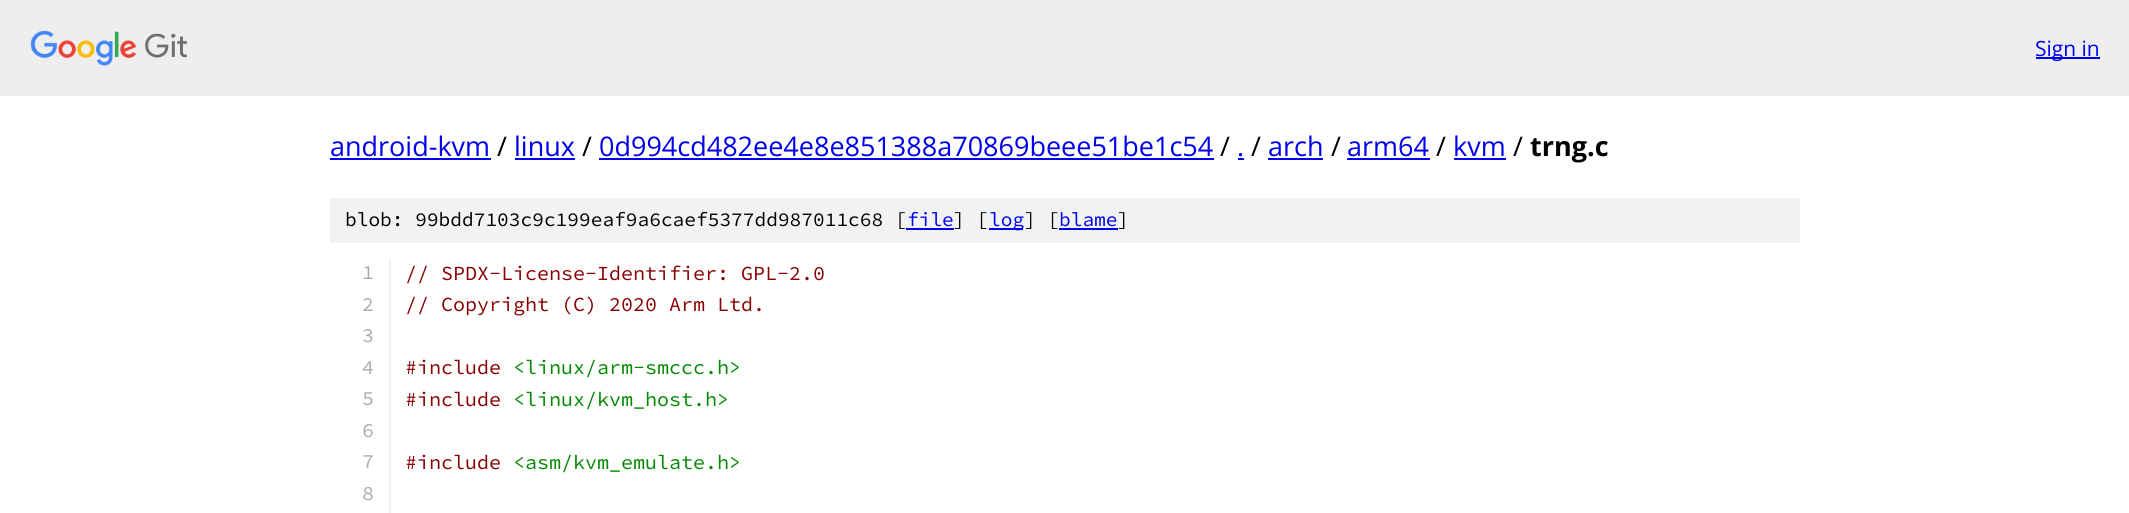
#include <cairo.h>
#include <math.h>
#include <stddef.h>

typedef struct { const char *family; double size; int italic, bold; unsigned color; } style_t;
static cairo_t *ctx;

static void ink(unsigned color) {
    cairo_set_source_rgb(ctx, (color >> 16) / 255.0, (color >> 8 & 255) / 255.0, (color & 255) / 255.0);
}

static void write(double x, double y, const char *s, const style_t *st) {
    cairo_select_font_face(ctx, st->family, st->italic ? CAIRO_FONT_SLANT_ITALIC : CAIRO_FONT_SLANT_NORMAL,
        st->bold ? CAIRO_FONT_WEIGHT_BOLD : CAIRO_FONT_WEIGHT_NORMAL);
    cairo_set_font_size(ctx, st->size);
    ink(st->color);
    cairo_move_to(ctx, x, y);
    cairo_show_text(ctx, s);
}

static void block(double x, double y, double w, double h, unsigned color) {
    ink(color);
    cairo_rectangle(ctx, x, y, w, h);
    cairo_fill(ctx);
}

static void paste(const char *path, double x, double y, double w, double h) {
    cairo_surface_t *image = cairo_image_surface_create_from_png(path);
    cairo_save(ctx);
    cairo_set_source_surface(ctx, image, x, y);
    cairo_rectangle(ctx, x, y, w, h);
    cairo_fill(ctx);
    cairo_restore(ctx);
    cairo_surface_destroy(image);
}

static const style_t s1 = {"Open Sans", 21, 0, 0, 0x0000ee};
static const style_t s2 = {"Open Sans", 27, 0, 0, 0x0000ee};
static const style_t s3 = {"Open Sans", 27, 0, 0, 0x000000};
static const style_t s4 = {"Open Sans", 27, 0, 1, 0x000000};
static const style_t s5 = {"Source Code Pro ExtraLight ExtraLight", 19.5, 0, 0, 0x000000};
static const style_t s6 = {"Source Code Pro ExtraLight ExtraLight", 19.5, 0, 0, 0x0000ee};
static const style_t s7 = {"Source Code Pro ExtraLight ExtraLight", 20, 0, 0, 0xaaaaaa};
static const style_t s8 = {"Source Code Pro ExtraLight ExtraLight", 20, 0, 0, 0x880000};
static const style_t s9 = {"Source Code Pro ExtraLight ExtraLight", 20, 0, 0, 0x008800};

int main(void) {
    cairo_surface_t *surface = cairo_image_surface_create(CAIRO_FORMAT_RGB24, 2129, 513);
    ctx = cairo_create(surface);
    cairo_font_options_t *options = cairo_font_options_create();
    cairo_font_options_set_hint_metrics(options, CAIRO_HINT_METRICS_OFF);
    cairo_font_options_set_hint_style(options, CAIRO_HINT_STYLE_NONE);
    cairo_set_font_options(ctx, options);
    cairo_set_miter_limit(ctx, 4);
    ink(0xffffff);
    cairo_paint(ctx);
    block(0, 0, 2129, 96, 0xeeeeee);
    paste("pic1.png", 30, 30, 157, 36);
    block(2036, 57, 64, 2, 0x0000ee);
    write(2035, 56, "Sign in", &s1);
    write(330, 156, "android-kvm", &s2);
    block(330, 158, 161, 2, 0x0000ee);
    write(497, 156, "/", &s3);
    write(514, 156, "linux", &s2);
    block(515, 158, 60, 2, 0x0000ee);
    write(582, 156, "/", &s3);
    write(599, 156, "0d994cd482ee4e8e851388a70869beee51be1c54", &s2);
    block(599, 158, 615, 2, 0x0000ee);
    write(1220, 156, "/", &s3);
    write(1237, 156, ".", &s2);
    block(1238, 158, 6, 2, 0x0000ee);
    write(1251, 156, "/", &s3);
    write(1268, 156, "arch", &s2);
    block(1268, 158, 55, 2, 0x0000ee);
    write(1331, 156, "/", &s3);
    write(1347, 156, "arm64", &s2);
    block(1347, 158, 83, 2, 0x0000ee);
    write(1436, 156, "/", &s3);
    write(1453, 156, "kvm", &s2);
    block(1454, 158, 52, 2, 0x0000ee);
    write(1513, 156, "/", &s3);
    write(1530, 156, "trng.c", &s4);
    block(330, 198, 1470, 45, 0xf1f2f3);
    write(345, 226, "blob: 99bdd7103c9c199eaf9a6caef5377dd987011c68 [", &s5);
    write(907, 226, "file", &s6);
    block(906, 228, 48, 2, 0x0000ee);
    write(953, 226, "] [", &s5);
    block(989, 228, 34, 2, 0x0000ee);
    write(989, 226, "log", &s6);
    write(1024, 226, "] [", &s5);
    write(1059, 226, "blame", &s6);
    block(1059, 228, 59, 2, 0x0000ee);
    write(1117, 226, "]", &s5);
    block(389, 258, 2, 255, 0xf1f2f3);
    write(362, 279, "1", &s7);
    write(405, 280, "// SPDX-License-Identifier: GPL-2.0", &s8);
    write(362, 311, "2", &s7);
    write(405, 311, "// Copyright (C) 2020 Arm Ltd.", &s8);
    write(362, 342, "3", &s7);
    write(362, 374, "4", &s7);
    write(405, 374, "#include", &s8);
    write(513, 374, "<linux/arm-smccc.h>", &s9);
    write(362, 405, "5", &s7);
    write(405, 406, "#include", &s8);
    write(513, 406, "<linux/kvm_host.h>", &s9);
    write(362, 437, "6", &s7);
    write(362, 468, "7", &s7);
    write(405, 469, "#include", &s8);
    write(513, 469, "<asm/kvm_emulate.h>", &s9);
    write(362, 500, "8", &s7);
    cairo_surface_write_to_png(surface, "screenshot.png");
    cairo_font_options_destroy(options);
    cairo_destroy(ctx);
    cairo_surface_destroy(surface);
    return 0;
}
